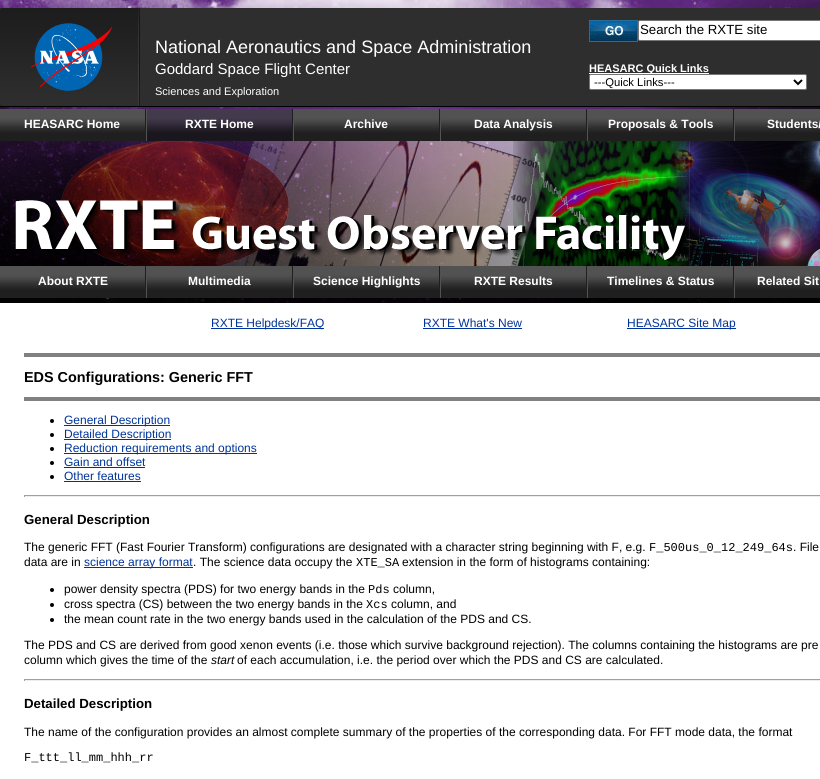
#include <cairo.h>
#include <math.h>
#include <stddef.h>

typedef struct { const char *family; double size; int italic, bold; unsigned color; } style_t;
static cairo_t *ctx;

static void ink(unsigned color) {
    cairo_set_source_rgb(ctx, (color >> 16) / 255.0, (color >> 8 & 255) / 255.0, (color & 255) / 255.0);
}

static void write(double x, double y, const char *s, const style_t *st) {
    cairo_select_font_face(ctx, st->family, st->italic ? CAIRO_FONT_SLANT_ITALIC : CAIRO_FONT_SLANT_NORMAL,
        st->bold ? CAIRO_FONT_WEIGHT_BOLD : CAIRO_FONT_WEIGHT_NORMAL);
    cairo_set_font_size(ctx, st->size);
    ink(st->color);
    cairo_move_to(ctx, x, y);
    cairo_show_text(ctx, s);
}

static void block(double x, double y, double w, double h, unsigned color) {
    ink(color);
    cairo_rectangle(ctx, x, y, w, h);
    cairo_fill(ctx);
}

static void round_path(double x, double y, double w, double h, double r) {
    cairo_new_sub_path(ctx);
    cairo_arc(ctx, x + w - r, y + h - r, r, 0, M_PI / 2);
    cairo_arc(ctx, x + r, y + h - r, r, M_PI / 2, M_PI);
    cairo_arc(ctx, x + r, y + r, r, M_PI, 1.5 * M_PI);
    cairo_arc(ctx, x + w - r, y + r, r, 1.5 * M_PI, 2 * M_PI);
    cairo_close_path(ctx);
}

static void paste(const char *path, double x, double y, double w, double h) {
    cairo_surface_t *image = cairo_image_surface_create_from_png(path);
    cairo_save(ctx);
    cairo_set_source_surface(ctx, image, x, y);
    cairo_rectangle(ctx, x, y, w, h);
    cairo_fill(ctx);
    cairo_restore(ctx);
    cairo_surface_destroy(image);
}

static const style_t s1 = {"Liberation Sans", 18, 0, 0, 0xffffff};
static const style_t s2 = {"Liberation Sans", 15, 0, 0, 0xffffff};
static const style_t s3 = {"Liberation Sans", 11, 0, 0, 0xffffff};
static const style_t s4 = {"Liberation Sans", 13.25, 0, 0, 0x000000};
static const style_t s5 = {"Liberation Sans", 11, 0, 1, 0xffffff};
static const style_t s6 = {"Liberation Sans", 11.25, 0, 0, 0x000000};
static const style_t s7 = {"Liberation Sans", 12, 0, 1, 0xffffff};
static const style_t s8 = {"Liberation Sans", 12, 0, 0, 0x003399};
static const style_t s9 = {"Liberation Sans", 14.4, 0, 1, 0x000000};
static const style_t s10 = {"Liberation Sans", 13.25, 0, 1, 0x000000};
static const style_t s11 = {"Liberation Sans", 12, 0, 0, 0x000000};
static const style_t s12 = {"Liberation Mono", 12, 0, 0, 0x000000};
static const style_t s13 = {"Liberation Sans", 12, 1, 0, 0x000000};

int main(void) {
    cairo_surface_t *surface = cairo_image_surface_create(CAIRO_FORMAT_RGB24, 820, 779);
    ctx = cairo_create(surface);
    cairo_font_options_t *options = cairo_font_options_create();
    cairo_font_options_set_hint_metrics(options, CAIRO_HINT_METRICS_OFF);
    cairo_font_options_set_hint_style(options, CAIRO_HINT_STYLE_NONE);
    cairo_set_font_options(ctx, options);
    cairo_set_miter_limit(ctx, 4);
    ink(0xffffff);
    cairo_paint(ctx);
    paste("pic1.png", 0, 0, 820, 303);
    block(0, 8, 820, 98, 0x2e2e2e);
    block(0, 106, 820, 1, 0x000000);
    paste("pic2.png", 0, 8, 140, 98);
    write(155, 53, "National Aeronautics and Space Administration", &s1);
    write(155, 74, "Goddard Space Flight Center", &s2);
    write(155, 95, "Sciences and Exploration", &s3);
    paste("pic3.png", 589, 20, 49, 22);
    round_path(638.5, 20.5, 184, 20, 1.5);
    cairo_fill_preserve(ctx);
    ink(0x767676);
    cairo_set_line_width(ctx, 1);
    cairo_stroke(ctx);
    write(640, 34, "Search the RXTE site", &s4);
    block(589, 73, 120, 1, 0xffffff);
    write(589, 72, "HEASARC Quick Links", &s5);
    round_path(589.5, 74.5, 217, 15, 1.5);
    cairo_fill_preserve(ctx);
    ink(0x767676);
    cairo_stroke(ctx);
    cairo_new_path(ctx);
    cairo_move_to(ctx, 794, 80);
    cairo_line_to(ctx, 798, 84);
    cairo_line_to(ctx, 802, 80);
    ink(0x000000);
    cairo_set_line_width(ctx, 2);
    cairo_stroke(ctx);
    write(594, 86, "---Quick Links---", &s6);
    paste("pic4.png", 0, 109, 820, 32);
    block(145, 109, 1, 23, 0x1f1f1f);
    write(24, 128, "HEASARC Home", &s7);
    paste("pic5.png", 147, 109, 145, 32);
    block(292, 109, 1, 23, 0x1f1f1f);
    block(146, 119, 1, 22, 0x525252);
    write(185, 128, "RXTE Home", &s7);
    block(439, 109, 1, 23, 0x1f1f1f);
    block(293, 119, 1, 22, 0x525252);
    write(344, 128, "Archive", &s7);
    block(586, 109, 1, 32, 0x1f1f1f);
    block(440, 119, 1, 22, 0x525252);
    write(474, 128, "Data Analysis", &s7);
    block(733, 109, 1, 23, 0x1f1f1f);
    block(587, 119, 1, 22, 0x525252);
    write(608, 128, "Proposals & Tools", &s7);
    block(734, 119, 1, 22, 0x525252);
    write(767, 128, "Students/", &s7);
    paste("pic6.png", 15, 141, 805, 125);
    paste("pic4.png", 0, 266, 820, 32);
    block(145, 266, 1, 23, 0x1f1f1f);
    write(38, 285, "About RXTE", &s7);
    block(292, 266, 1, 23, 0x1f1f1f);
    block(146, 276, 1, 22, 0x525252);
    write(188, 285, "Multimedia", &s7);
    block(439, 266, 1, 23, 0x1f1f1f);
    block(293, 276, 1, 22, 0x525252);
    write(313, 285, "Science Highlights", &s7);
    block(586, 266, 1, 32, 0x1f1f1f);
    block(440, 276, 1, 22, 0x525252);
    write(474, 285, "RXTE Results", &s7);
    block(733, 266, 1, 23, 0x1f1f1f);
    block(587, 276, 1, 22, 0x525252);
    write(607, 285, "Timelines & Status", &s7);
    block(734, 276, 1, 22, 0x525252);
    write(757, 285, "Related Sit", &s7);
    block(211, 328, 113, 1, 0x003399);
    write(211, 327, "RXTE Helpdesk/FAQ", &s8);
    write(423, 327, "RXTE What's New", &s8);
    block(423, 328, 99, 1, 0x003399);
    block(627, 328, 109, 1, 0x003399);
    write(627, 327, "HEASARC Site Map", &s8);
    block(24, 353, 796, 4, 0x808080);
    write(24, 382, "EDS Configurations: Generic FFT", &s9);
    block(24, 397, 796, 4, 0x808080);
    ink(0x000000);
    cairo_new_path(ctx);
    cairo_arc(ctx, 52, 421, 2, 0, 2 * M_PI);
    cairo_fill(ctx);
    block(64, 425, 106, 1, 0x003399);
    write(64, 424, "General Description", &s8);
    ink(0x000000);
    cairo_new_path(ctx);
    cairo_arc(ctx, 52, 435, 2, 0, 2 * M_PI);
    cairo_fill(ctx);
    block(64, 439, 107, 1, 0x003399);
    write(64, 438, "Detailed Description", &s8);
    ink(0x000000);
    cairo_new_path(ctx);
    cairo_arc(ctx, 52, 449, 2, 0, 2 * M_PI);
    cairo_fill(ctx);
    block(64, 453, 193, 1, 0x003399);
    write(64, 452, "Reduction requirements and options", &s8);
    ink(0x000000);
    cairo_new_path(ctx);
    cairo_arc(ctx, 52, 463, 2, 0, 2 * M_PI);
    cairo_fill(ctx);
    write(64, 466, "Gain and offset", &s8);
    block(64, 467, 81, 1, 0x003399);
    ink(0x000000);
    cairo_new_path(ctx);
    cairo_arc(ctx, 52, 477, 2, 0, 2 * M_PI);
    cairo_fill(ctx);
    write(64, 480, "Other features", &s8);
    block(64, 481, 77, 1, 0x003399);
    block(24, 495, 796, 1, 0x9f9f9f);
    block(24, 496, 796, 1, 0xeeeeee);
    block(24, 495, 1, 2, 0x9f9f9f);
    write(24, 524, "General Description", &s10);
    write(24, 551, "The generic FFT (Fast Fourier Transform) configurations are designated with a character string beginning with F, e.g.", &s11);
    write(649, 551, "F_500us_0_12_249_64s", &s12);
    write(793, 551, ". File", &s11);
    write(24, 566, "data are in", &s11);
    block(84, 567, 109, 1, 0x003399);
    write(84, 566, "science array format", &s8);
    write(193, 566, ". The science data occupy the", &s11);
    write(356, 566, "XTE_SA", &s12);
    write(402, 566, "extension in the form of histograms containing:", &s11);
    cairo_new_path(ctx);
    cairo_arc(ctx, 52, 590, 2, 0, 2 * M_PI);
    cairo_fill(ctx);
    write(64, 593, "power density spectra (PDS) for two energy bands in the", &s11);
    write(368, 593, "Pds", &s12);
    write(393, 593, "column,", &s11);
    cairo_new_path(ctx);
    cairo_arc(ctx, 52, 605, 2, 0, 2 * M_PI);
    cairo_fill(ctx);
    write(64, 608, "cross spectra (CS) between the two energy bands in the", &s11);
    write(366, 608, "Xcs", &s12);
    write(391, 608, "column, and", &s11);
    cairo_new_path(ctx);
    cairo_arc(ctx, 52, 620, 2, 0, 2 * M_PI);
    cairo_fill(ctx);
    write(64, 623, "the mean count rate in the two energy bands used in the calculation of the PDS and CS.", &s11);
    write(24, 649, "The PDS and CS are derived from good xenon events (i.e. those which survive background rejection). The columns containing the histograms are pre", &s11);
    write(24, 664, "column which gives the time of the", &s11);
    write(211, 664, "start", &s13);
    write(237, 664, "of each accumulation, i.e. the period over which the PDS and CS are calculated.", &s11);
    block(24, 679, 796, 1, 0x9f9f9f);
    block(24, 680, 796, 1, 0xeeeeee);
    block(24, 679, 1, 2, 0x9f9f9f);
    write(24, 708, "Detailed Description", &s10);
    write(24, 736, "The name of the configuration provides an almost complete summary of the properties of the corresponding data. For FFT mode data, the format", &s11);
    write(24, 761, "F_ttt_ll_mm_hhh_rr", &s12);
    cairo_surface_write_to_png(surface, "screenshot.png");
    cairo_font_options_destroy(options);
    cairo_destroy(ctx);
    cairo_surface_destroy(surface);
    return 0;
}
